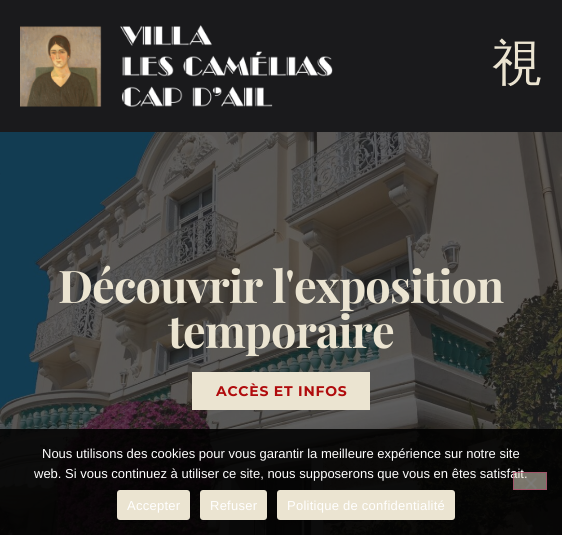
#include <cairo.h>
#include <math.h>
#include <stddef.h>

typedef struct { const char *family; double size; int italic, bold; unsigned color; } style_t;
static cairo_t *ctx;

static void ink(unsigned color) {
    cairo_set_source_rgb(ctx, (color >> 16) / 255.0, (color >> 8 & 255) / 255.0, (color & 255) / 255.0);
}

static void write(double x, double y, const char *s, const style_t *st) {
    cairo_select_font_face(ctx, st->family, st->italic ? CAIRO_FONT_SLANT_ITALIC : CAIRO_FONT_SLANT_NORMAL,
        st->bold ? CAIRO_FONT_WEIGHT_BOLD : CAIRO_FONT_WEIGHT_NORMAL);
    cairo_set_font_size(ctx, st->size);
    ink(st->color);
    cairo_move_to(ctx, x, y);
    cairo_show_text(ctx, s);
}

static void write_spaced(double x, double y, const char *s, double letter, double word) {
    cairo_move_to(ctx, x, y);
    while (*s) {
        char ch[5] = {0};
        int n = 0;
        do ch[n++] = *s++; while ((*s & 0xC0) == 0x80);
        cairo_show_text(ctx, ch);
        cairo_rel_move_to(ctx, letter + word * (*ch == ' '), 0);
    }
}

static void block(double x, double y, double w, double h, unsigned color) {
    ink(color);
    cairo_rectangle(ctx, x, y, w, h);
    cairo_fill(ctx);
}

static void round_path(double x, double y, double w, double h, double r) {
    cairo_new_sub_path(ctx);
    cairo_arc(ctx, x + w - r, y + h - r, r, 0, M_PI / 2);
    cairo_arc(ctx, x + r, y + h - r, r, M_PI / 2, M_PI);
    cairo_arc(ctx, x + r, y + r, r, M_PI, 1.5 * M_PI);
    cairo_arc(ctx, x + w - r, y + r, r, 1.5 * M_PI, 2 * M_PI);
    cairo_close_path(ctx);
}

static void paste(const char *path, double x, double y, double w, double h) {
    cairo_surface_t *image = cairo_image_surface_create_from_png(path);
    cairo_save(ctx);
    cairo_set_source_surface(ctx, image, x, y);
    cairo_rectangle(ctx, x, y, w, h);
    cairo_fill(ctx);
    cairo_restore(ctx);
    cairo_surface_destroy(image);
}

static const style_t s1 = {"WenQuanYi Zen Hei Medium", 50, 0, 0, 0xebe4d1};
static const style_t s2 = {"Liberation Sans", 13, 0, 0, 0xffffff};

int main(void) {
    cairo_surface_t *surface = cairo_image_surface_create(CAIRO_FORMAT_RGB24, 562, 535);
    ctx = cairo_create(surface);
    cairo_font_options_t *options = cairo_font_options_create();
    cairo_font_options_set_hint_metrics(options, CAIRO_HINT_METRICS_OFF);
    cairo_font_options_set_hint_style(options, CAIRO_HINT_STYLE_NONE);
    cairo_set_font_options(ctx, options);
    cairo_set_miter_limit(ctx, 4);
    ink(0xffffff);
    cairo_paint(ctx);
    block(0, 0, 562, 132, 0x1a1a1c);
    paste("pic1.png", 20, 25, 313, 82);
    write(492, 80, "視", &s1);
    paste("pic2.png", 0, 132, 562, 403);
    cairo_select_font_face(ctx, "Playfair Display", CAIRO_FONT_SLANT_NORMAL, CAIRO_FONT_WEIGHT_BOLD);
    cairo_set_font_size(ctx, 45);
    write_spaced(58, 303, "Découvrir l'exposition", -0.8, 0);
    write_spaced(168, 348, "temporaire", -0.8, 0);
    block(192, 372, 178, 38, 0xebe4d1);
    cairo_select_font_face(ctx, "Montserrat", CAIRO_FONT_SLANT_NORMAL, CAIRO_FONT_WEIGHT_BOLD);
    cairo_set_font_size(ctx, 14);
    ink(0xb00b0c);
    write_spaced(216, 396, "ACCÈS ET INFOS", 0.75, 0);
    cairo_set_source_rgba(ctx, 0, 0, 0, 0.86);
    cairo_rectangle(ctx, 0, 429, 562, 106);
    cairo_fill(ctx);
    write(42, 458, "Nous utilisons des cookies pour vous garantir la meilleure expérience sur notre site", &s2);
    write(34, 478, "web. Si vous continuez à utiliser ce site, nous supposerons que vous en êtes satisfait.", &s2);
    cairo_set_source_rgba(ctx, 0.922, 0.894, 0.82, 0.5);
    cairo_rectangle(ctx, 513, 472, 34, 18);
    cairo_fill(ctx);
    cairo_rectangle(ctx, 513.5, 472.5, 33, 17);
    cairo_set_source_rgba(ctx, 0.8, 0.2, 0.4, 0.5);
    cairo_set_line_width(ctx, 1);
    cairo_stroke(ctx);
    ink(0x7c7a75);
    cairo_new_path(ctx);
    cairo_move_to(ctx, 535.5, 477.5);
    cairo_line_to(ctx, 537, 479);
    cairo_line_to(ctx, 526.5, 489.5);
    cairo_line_to(ctx, 525, 488);
    cairo_close_path(ctx);
    cairo_fill(ctx);
    cairo_set_source_rgba(ctx, 0.502, 0.502, 0.502, 0.5);
    cairo_new_path(ctx);
    cairo_move_to(ctx, 525, 479);
    cairo_line_to(ctx, 526.5, 477.5);
    cairo_line_to(ctx, 537, 488);
    cairo_line_to(ctx, 535.5, 489.5);
    cairo_close_path(ctx);
    cairo_fill(ctx);
    ink(0xebe4d1);
    round_path(117, 490, 73, 30, 3);
    cairo_fill(ctx);
    ink(0xffffff);
    write_spaced(127, 510, "Accepter", 0.25, 0);
    ink(0xebe4d1);
    round_path(200, 490, 67, 30, 3);
    cairo_fill(ctx);
    ink(0xffffff);
    write_spaced(210, 510, "Refuser", 0.25, 0);
    ink(0xebe4d1);
    round_path(277, 490, 178, 30, 3);
    cairo_fill(ctx);
    ink(0xffffff);
    write_spaced(287, 510, "Politique de confidentialité", 0.25, 0);
    cairo_surface_write_to_png(surface, "screenshot.png");
    cairo_font_options_destroy(options);
    cairo_destroy(ctx);
    cairo_surface_destroy(surface);
    return 0;
}
